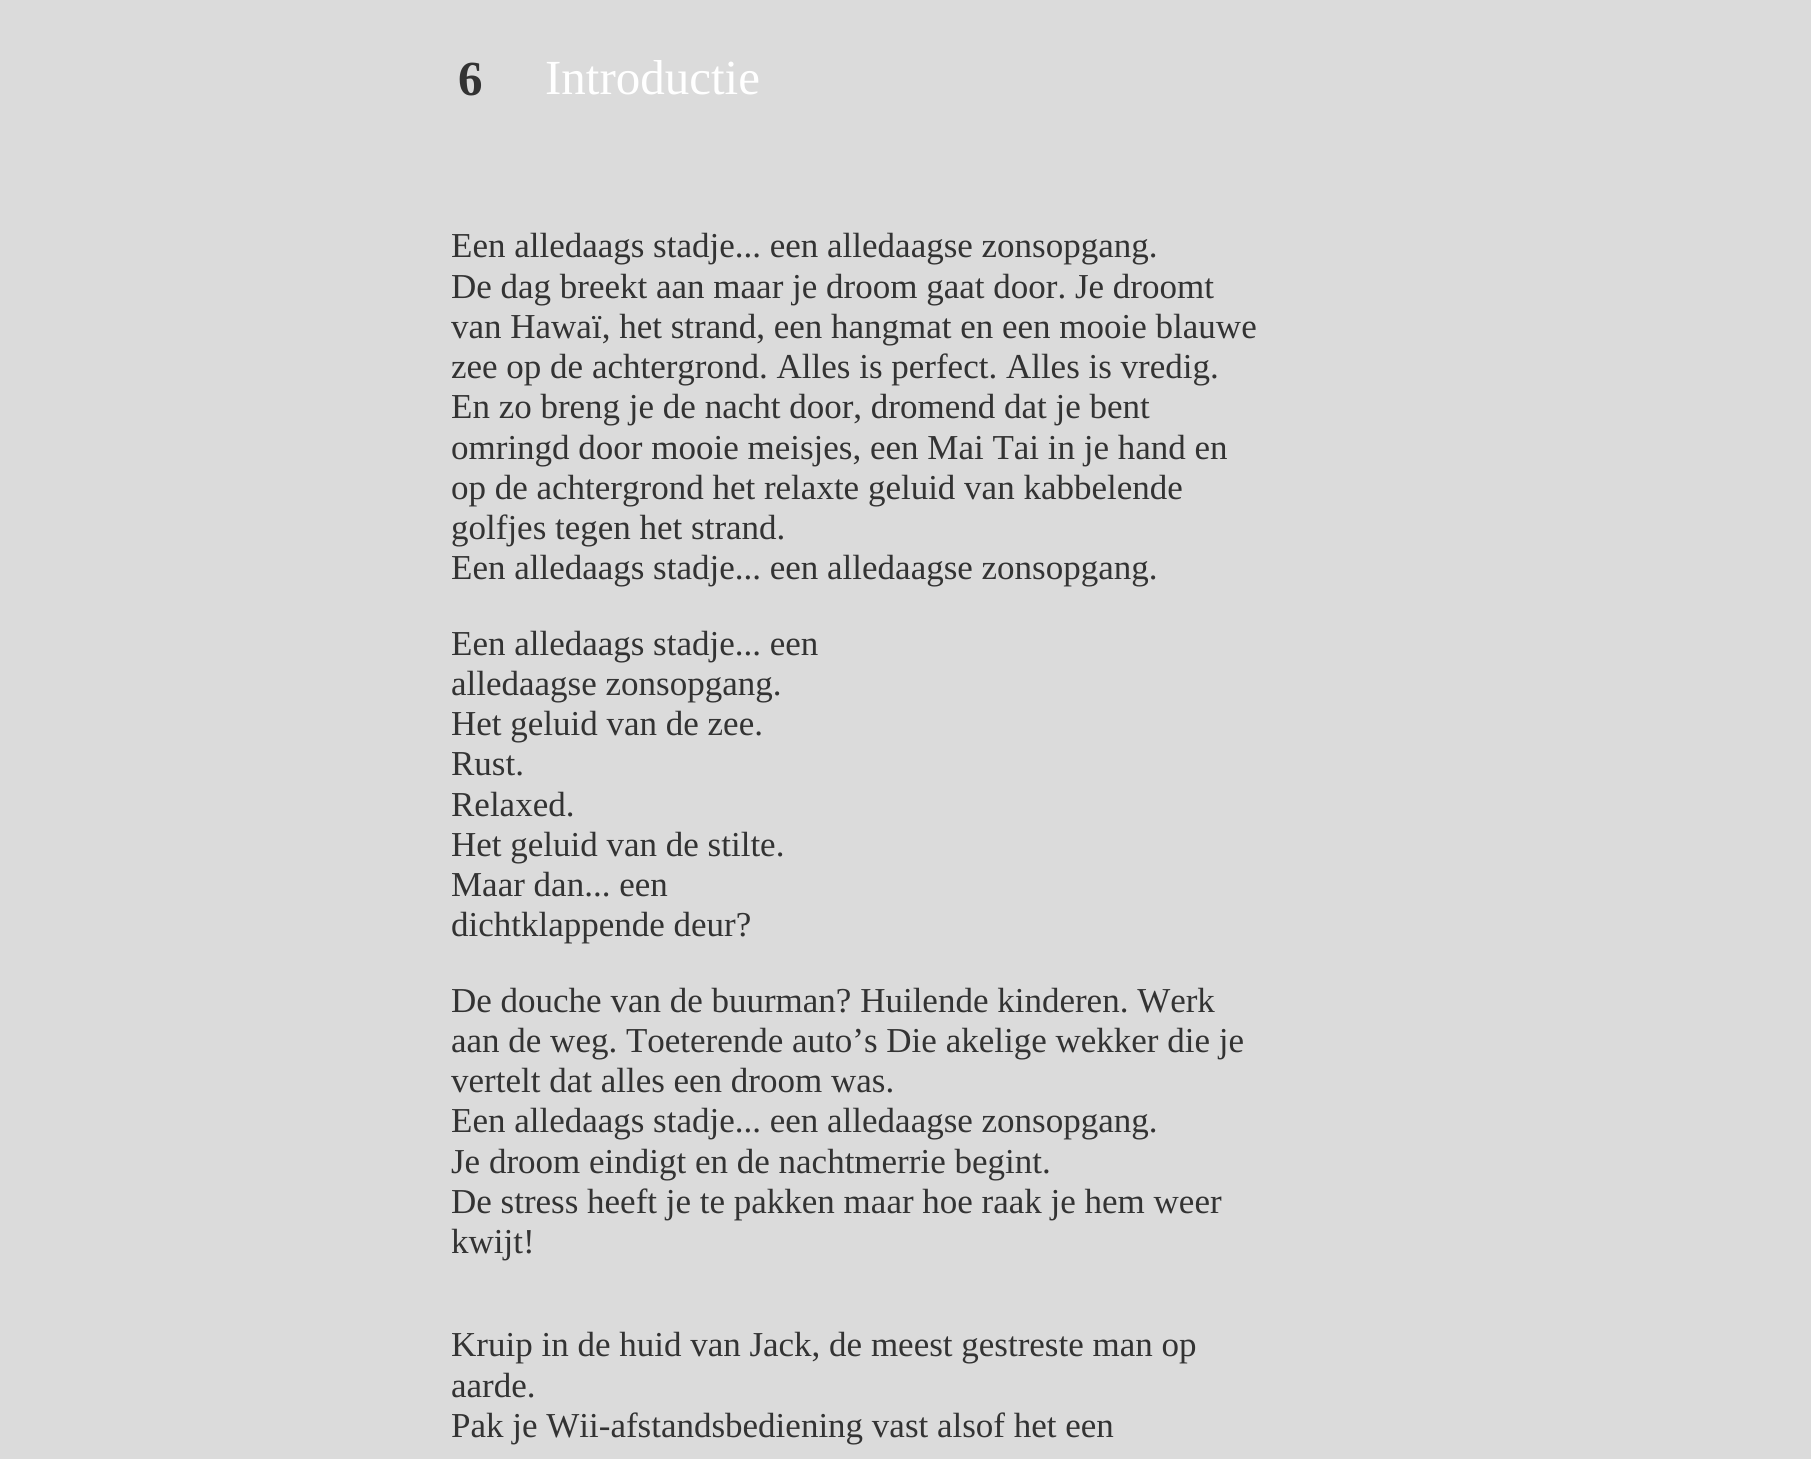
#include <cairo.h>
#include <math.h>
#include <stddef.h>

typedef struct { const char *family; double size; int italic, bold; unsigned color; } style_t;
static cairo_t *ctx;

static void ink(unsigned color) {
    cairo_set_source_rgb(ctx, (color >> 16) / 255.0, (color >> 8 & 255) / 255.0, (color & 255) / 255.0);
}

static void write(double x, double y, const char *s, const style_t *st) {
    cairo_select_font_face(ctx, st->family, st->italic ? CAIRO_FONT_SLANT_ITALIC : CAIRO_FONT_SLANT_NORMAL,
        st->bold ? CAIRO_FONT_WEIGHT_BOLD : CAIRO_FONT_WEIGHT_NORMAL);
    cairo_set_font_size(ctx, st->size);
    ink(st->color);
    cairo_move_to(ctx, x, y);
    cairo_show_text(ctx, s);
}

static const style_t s1 = {"Liberation Serif", 49, 0, 1, 0x333333};
static const style_t s2 = {"Liberation Serif", 49, 0, 0, 0xffffff};
static const style_t s3 = {"Liberation Serif", 35, 0, 0, 0x333333};

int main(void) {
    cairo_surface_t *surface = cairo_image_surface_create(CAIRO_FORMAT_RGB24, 1811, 1459);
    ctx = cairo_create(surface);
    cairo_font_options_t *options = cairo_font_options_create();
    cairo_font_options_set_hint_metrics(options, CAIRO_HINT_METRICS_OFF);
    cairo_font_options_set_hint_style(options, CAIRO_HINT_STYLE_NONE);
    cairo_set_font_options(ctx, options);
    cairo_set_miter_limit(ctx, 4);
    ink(0xdbdbdb);
    cairo_paint(ctx);
    write(458, 95, "6", &s1);
    write(545, 94, "Introductie", &s2);
    write(451, 257, "Een alledaags stadje... een alledaagse zonsopgang.", &s3);
    write(451, 298, "De dag breekt aan maar je droom gaat door. Je droomt", &s3);
    write(451, 338, "van Hawaï, het strand, een hangmat en een mooie blauwe", &s3);
    write(451, 378, "zee op de achtergrond. Alles is perfect. Alles is vredig.", &s3);
    write(451, 418, "En zo breng je de nacht door, dromend dat je bent", &s3);
    write(451, 459, "omringd door mooie meisjes, een Mai Tai in je hand en", &s3);
    write(451, 499, "op de achtergrond het relaxte geluid van kabbelende", &s3);
    write(451, 539, "golfjes tegen het strand.", &s3);
    write(451, 579, "Een alledaags stadje... een alledaagse zonsopgang.", &s3);
    write(451, 655, "Een alledaags stadje... een", &s3);
    write(451, 695, "alledaagse zonsopgang.", &s3);
    write(451, 735, "Het geluid van de zee.", &s3);
    write(451, 775, "Rust.", &s3);
    write(451, 816, "Relaxed.", &s3);
    write(451, 856, "Het geluid van de stilte.", &s3);
    write(451, 896, "Maar dan... een", &s3);
    write(451, 936, "dichtklappende deur?", &s3);
    write(451, 1012, "De douche van de buurman? Huilende kinderen. Werk", &s3);
    write(451, 1052, "aan de weg. Toeterende auto’s Die akelige wekker die je", &s3);
    write(451, 1092, "vertelt dat alles een droom was.", &s3);
    write(451, 1132, "Een alledaags stadje... een alledaagse zonsopgang.", &s3);
    write(451, 1173, "Je droom eindigt en de nachtmerrie begint.", &s3);
    write(451, 1213, "De stress heeft je te pakken maar hoe raak je hem weer", &s3);
    write(451, 1253, "kwijt!", &s3);
    write(451, 1356, "Kruip in de huid van Jack, de meest gestreste man op", &s3);
    write(451, 1397, "aarde.", &s3);
    write(451, 1437, "Pak je Wii-afstandsbediening vast alsof het een", &s3);
    cairo_surface_write_to_png(surface, "screenshot.png");
    cairo_font_options_destroy(options);
    cairo_destroy(ctx);
    cairo_surface_destroy(surface);
    return 0;
}
